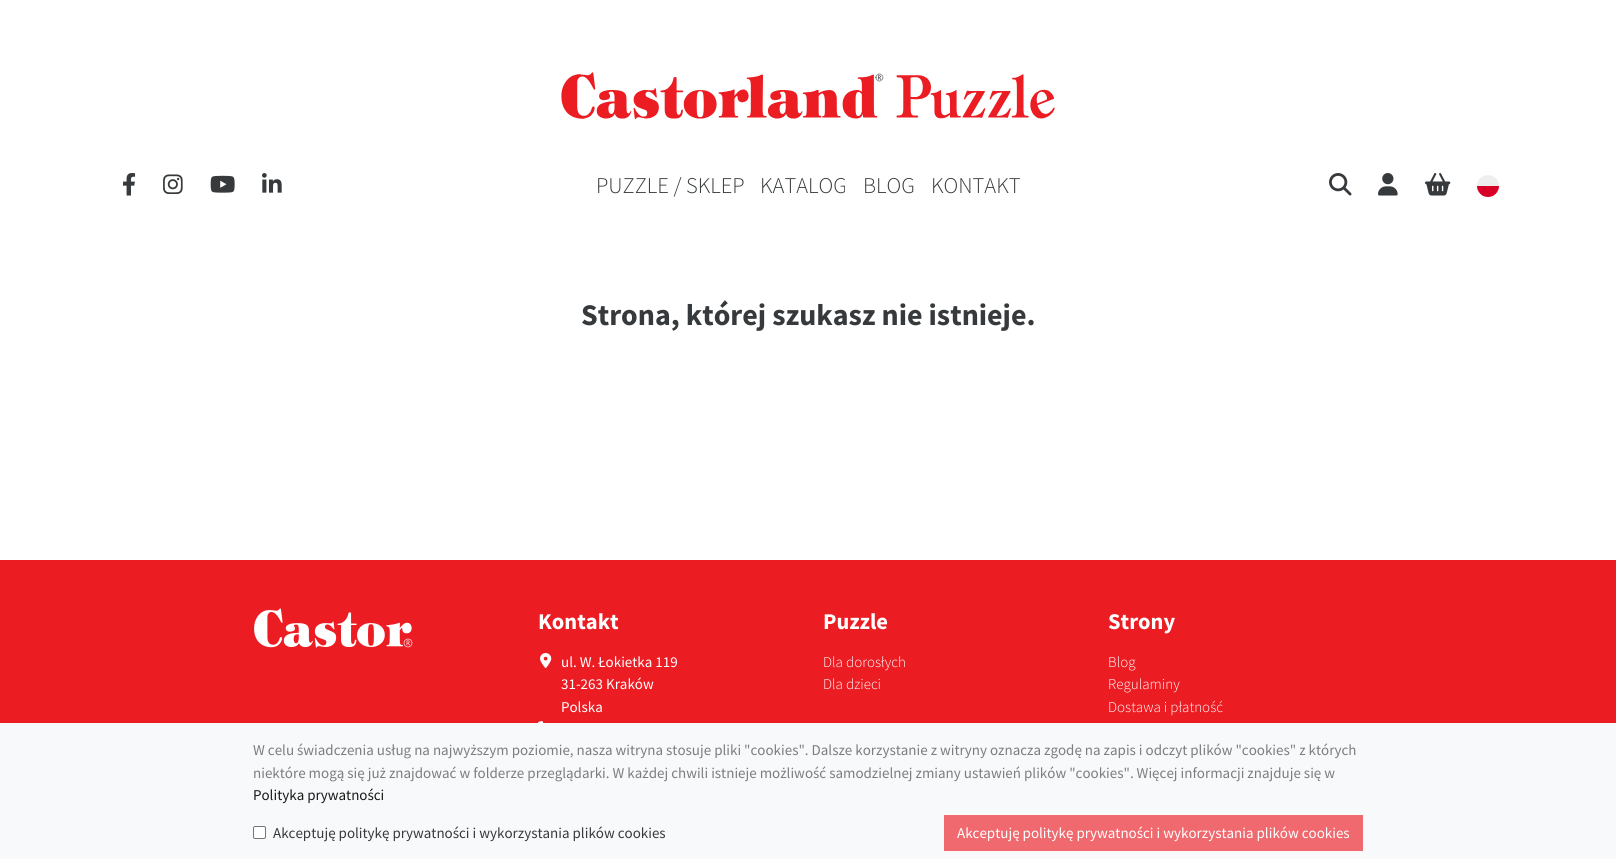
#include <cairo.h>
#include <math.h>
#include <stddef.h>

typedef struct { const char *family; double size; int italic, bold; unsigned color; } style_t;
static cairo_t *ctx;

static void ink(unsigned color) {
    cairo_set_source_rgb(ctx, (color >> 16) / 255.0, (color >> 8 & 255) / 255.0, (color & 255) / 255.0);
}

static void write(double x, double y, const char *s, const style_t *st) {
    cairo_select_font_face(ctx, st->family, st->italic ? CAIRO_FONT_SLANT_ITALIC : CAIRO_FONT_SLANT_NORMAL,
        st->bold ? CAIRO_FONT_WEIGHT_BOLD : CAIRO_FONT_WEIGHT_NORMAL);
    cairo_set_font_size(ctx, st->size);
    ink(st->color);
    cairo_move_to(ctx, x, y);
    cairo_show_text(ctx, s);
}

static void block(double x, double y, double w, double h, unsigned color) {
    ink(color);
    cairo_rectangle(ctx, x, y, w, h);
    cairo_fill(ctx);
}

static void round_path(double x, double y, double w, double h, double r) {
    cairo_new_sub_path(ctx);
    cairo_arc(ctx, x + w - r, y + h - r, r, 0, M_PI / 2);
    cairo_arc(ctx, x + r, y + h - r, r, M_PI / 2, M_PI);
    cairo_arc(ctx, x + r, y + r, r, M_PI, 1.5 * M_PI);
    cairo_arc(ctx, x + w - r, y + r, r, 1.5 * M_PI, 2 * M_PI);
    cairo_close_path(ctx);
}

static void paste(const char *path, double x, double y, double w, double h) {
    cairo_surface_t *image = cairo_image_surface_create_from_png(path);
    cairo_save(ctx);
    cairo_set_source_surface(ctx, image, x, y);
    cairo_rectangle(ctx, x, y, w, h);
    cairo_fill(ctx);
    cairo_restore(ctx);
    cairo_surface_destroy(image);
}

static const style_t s1 = {"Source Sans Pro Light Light", 22.5, 0, 0, 0x373a3c};
static const style_t s2 = {"Source Sans Pro", 30, 0, 1, 0x373a3c};
static const style_t s3 = {"Source Sans Pro", 22.5, 0, 1, 0xffffff};
static const style_t s4 = {"Source Sans Pro", 15, 0, 0, 0xffffff};
static const style_t s5 = {"Source Sans Pro Light Light", 15, 0, 0, 0xffffff};
static const style_t s6 = {"Source Sans Pro", 15, 0, 0, 0x7c7d7d};
static const style_t s7 = {"Source Sans Pro", 15, 0, 0, 0x191919};
static const style_t s8 = {"Source Sans Pro", 15, 0, 0, 0x373a3c};

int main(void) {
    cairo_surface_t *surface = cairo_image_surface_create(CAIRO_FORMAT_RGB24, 1616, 859);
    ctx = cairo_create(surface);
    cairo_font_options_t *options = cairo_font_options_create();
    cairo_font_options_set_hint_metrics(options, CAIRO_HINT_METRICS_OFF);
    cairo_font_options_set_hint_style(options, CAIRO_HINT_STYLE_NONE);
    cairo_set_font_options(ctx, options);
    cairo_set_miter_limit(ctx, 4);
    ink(0xffffff);
    cairo_paint(ctx);
    paste("pic1.png", 561, 72, 494, 48);
    paste("pic2.png", 123, 173, 13, 23);
    paste("pic3.png", 163, 174, 20, 20);
    paste("pic4.png", 210, 175, 25, 18);
    paste("pic5.png", 262, 173, 20, 20);
    write(596, 193, "PUZZLE / SKLEP", &s1);
    write(760, 193, "KATALOG", &s1);
    write(863, 193, "BLOG", &s1);
    write(931, 193, "KONTAKT", &s1);
    paste("pic6.png", 1329, 173, 23, 23);
    paste("pic7.png", 1378, 173, 20, 23);
    paste("pic8.png", 1425, 173, 26, 23);
    paste("pic9.png", 1477, 175, 22, 22);
    write(581, 325, "Strona, której szukasz nie istnieje.", &s2);
    block(0, 560, 1616, 163, 0xec1c23);
    paste("pic10.png", 254, 608, 159, 40);
    write(538, 629, "Kontakt", &s3);
    paste("pic11.png", 540, 653, 12, 15);
    write(561, 667, "ul. W. Łokietka 119", &s4);
    write(561, 689, "31-263 Kraków", &s4);
    write(561, 712, "Polska", &s4);
    paste("pic12.png", 538, 721, 6, 2);
    write(823, 629, "Puzzle", &s3);
    write(823, 667, "Dla dorosłych", &s5);
    write(823, 689, "Dla dzieci", &s5);
    write(1108, 629, "Strony", &s3);
    write(1108, 667, "Blog", &s5);
    write(1108, 689, "Regulaminy", &s5);
    write(1108, 712, "Dostawa i płatność", &s5);
    block(0, 723, 1616, 136, 0xf8f9fa);
    write(253, 755, "W celu świadczenia usług na najwyższym poziomie, nasza witryna stosuje pliki \"cookies\". Dalsze korzystanie z witryny oznacza zgodę na zapis i odczyt plików \"cookies\" z których", &s6);
    write(253, 778, "niektóre mogą się już znajdować w folderze przeglądarki. W każdej chwili istnieje możliwość samodzielnej zmiany ustawień plików \"cookies\". Więcej informacji znajduje się w", &s6);
    write(253, 800, "Polityka prywatności", &s7);
    ink(0xffffff);
    round_path(253.5, 826.5, 12, 12, 1.5);
    cairo_fill_preserve(ctx);
    ink(0x767676);
    cairo_set_line_width(ctx, 1);
    cairo_stroke(ctx);
    write(273, 838, "Akceptuję politykę prywatności i wykorzystania plików cookies", &s8);
    block(944, 815, 419, 36, 0xf0696e);
    write(957, 838, "Akceptuję politykę prywatności i wykorzystania plików cookies", &s4);
    cairo_surface_write_to_png(surface, "screenshot.png");
    cairo_font_options_destroy(options);
    cairo_destroy(ctx);
    cairo_surface_destroy(surface);
    return 0;
}
